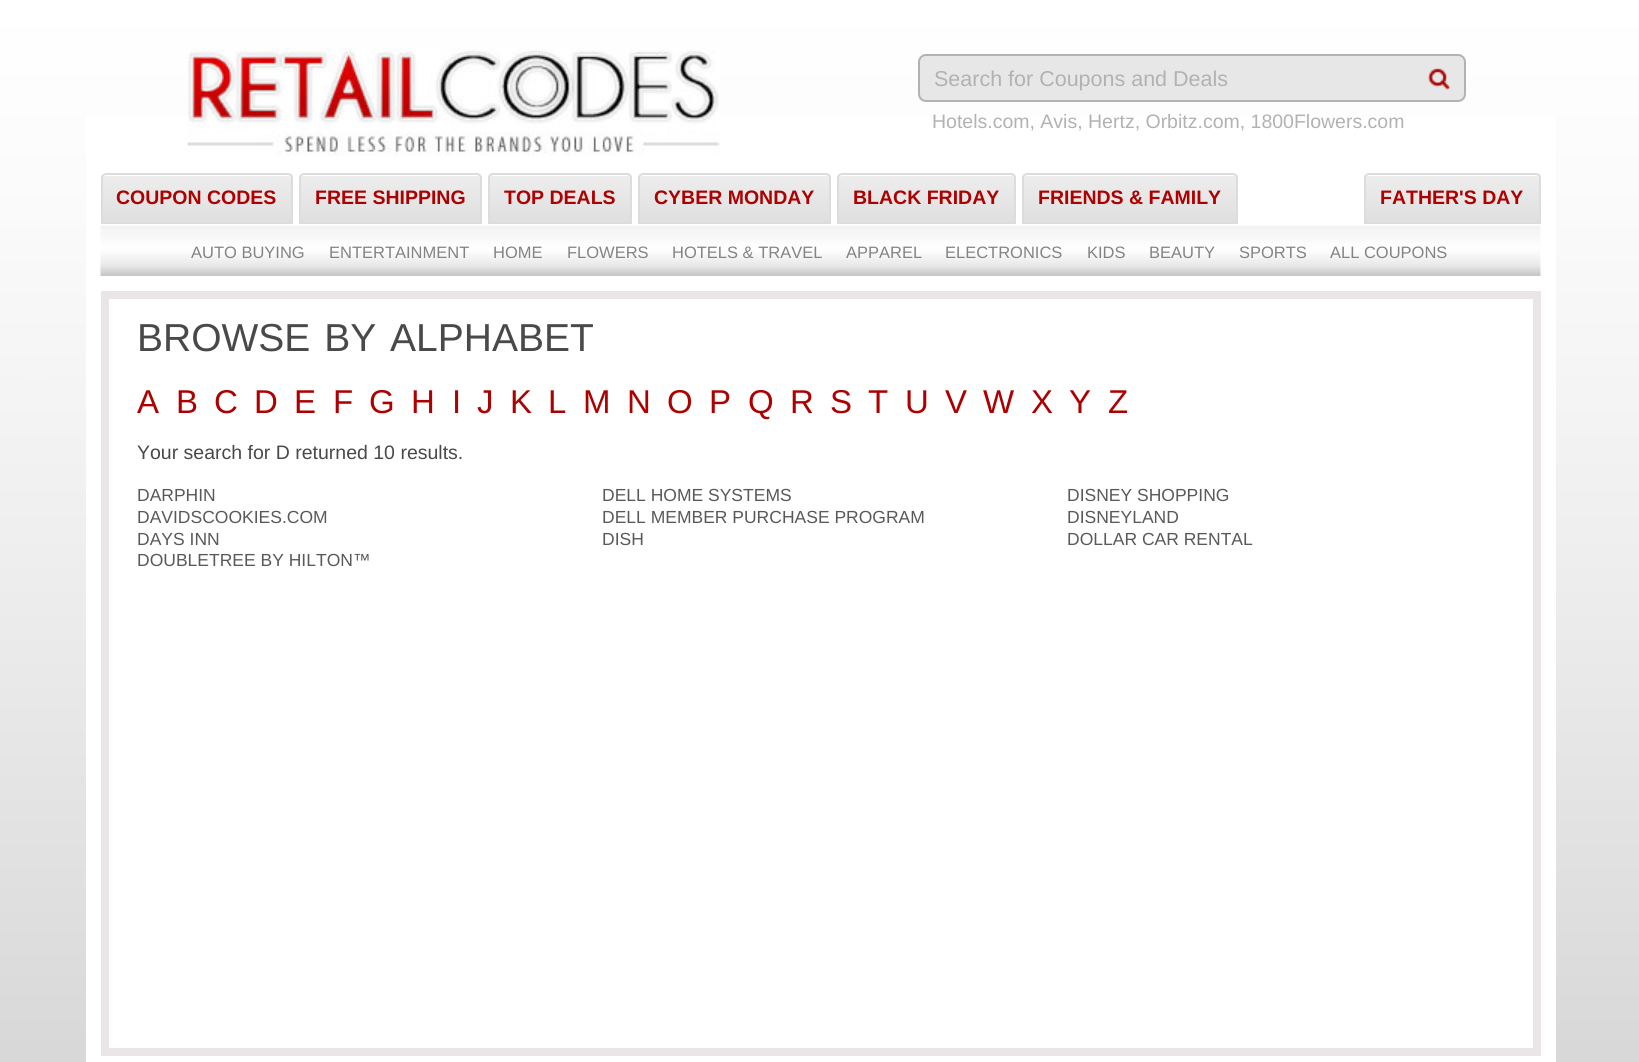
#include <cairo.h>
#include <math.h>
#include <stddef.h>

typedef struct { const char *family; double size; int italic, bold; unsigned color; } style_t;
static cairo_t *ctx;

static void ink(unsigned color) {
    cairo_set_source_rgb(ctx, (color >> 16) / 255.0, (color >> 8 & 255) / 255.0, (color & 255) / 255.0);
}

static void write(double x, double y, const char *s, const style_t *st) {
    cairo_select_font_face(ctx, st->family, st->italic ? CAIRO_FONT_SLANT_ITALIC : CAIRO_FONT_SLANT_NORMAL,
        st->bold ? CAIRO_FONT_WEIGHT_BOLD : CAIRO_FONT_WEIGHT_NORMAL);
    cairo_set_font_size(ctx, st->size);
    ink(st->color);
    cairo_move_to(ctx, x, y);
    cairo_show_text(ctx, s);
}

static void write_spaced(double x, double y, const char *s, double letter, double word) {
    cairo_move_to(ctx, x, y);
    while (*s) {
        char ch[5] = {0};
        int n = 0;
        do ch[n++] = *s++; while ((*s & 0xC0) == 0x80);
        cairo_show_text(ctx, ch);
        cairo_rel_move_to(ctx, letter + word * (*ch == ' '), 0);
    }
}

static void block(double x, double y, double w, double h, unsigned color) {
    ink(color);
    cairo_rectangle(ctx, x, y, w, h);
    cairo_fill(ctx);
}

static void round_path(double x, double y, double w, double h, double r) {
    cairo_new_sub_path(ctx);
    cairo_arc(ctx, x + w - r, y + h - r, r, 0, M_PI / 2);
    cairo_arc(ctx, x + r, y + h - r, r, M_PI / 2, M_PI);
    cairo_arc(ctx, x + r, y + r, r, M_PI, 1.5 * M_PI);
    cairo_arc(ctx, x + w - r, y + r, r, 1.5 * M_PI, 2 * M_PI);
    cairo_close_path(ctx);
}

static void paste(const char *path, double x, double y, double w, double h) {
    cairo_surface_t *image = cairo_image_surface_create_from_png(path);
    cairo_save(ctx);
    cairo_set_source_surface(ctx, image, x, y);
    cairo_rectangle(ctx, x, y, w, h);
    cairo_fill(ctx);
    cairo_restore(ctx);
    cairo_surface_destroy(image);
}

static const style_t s1 = {"Liberation Sans", 21.5, 0, 0, 0xb2b2b2};
static const style_t s2 = {"Liberation Sans", 19.5, 0, 0, 0xb2b2b2};
static const style_t s3 = {"Liberation Sans", 19.5, 0, 1, 0xad0101};
static const style_t s4 = {"Liberation Sans", 16.5, 0, 0, 0x838383};
static const style_t s5 = {"Liberation Sans", 33, 0, 0, 0xad0101};
static const style_t s6 = {"Liberation Sans", 19.5, 0, 0, 0x494949};
static const style_t s7 = {"Liberation Sans", 17.5, 0, 0, 0x595959};

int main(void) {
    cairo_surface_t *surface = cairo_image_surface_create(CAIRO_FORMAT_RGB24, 1639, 1062);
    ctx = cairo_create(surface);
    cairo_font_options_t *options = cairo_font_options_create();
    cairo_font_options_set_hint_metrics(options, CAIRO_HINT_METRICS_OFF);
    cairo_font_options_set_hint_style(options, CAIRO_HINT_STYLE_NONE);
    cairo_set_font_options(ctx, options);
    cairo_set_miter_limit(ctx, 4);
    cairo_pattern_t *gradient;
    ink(0xffffff);
    cairo_paint(ctx);
    paste("pic1.png", 0, 0, 1639, 1062);
    block(86, 117, 1470, 945, 0xffffff);
    paste("pic2.png", 187, 48, 533, 108);
    ink(0xe7e7e7);
    round_path(919, 55, 546, 46, 7);
    cairo_fill_preserve(ctx);
    ink(0xb2b2b2);
    cairo_stroke(ctx);
    write(934, 86, "Search for Coupons and Deals", &s1);
    paste("pic3.png", 1428, 68, 23, 22);
    write(932, 128, "Hotels.com, Avis, Hertz, Orbitz.com, 1800Flowers.com", &s2);
    cairo_save(ctx);
    cairo_new_path(ctx);
    cairo_move_to(ctx, 106, 173);
    cairo_line_to(ctx, 288, 173);
    cairo_curve_to(ctx, 291, 173, 293, 175, 293, 178);
    cairo_line_to(ctx, 293, 224);
    cairo_line_to(ctx, 101, 224);
    cairo_line_to(ctx, 101, 178);
    cairo_curve_to(ctx, 101, 175, 103, 173, 106, 173);
    cairo_close_path(ctx);
    cairo_clip(ctx);
    gradient = cairo_pattern_create_linear(102, 174, 102, 222);
    cairo_pattern_add_color_stop_rgba(gradient, 0.05, 0.929, 0.929, 0.929, 1);
    cairo_pattern_add_color_stop_rgba(gradient, 1, 0.875, 0.875, 0.875, 1);
    cairo_set_source(ctx, gradient);
    cairo_pattern_destroy(gradient);
    cairo_rectangle(ctx, 101, 174, 192, 48);
    cairo_fill(ctx);
    cairo_restore(ctx);
    ink(0xffffff);
    cairo_new_path(ctx);
    cairo_move_to(ctx, 105, 176);
    cairo_line_to(ctx, 288, 176);
    cairo_curve_to(ctx, 290, 176, 291, 177, 291, 178);
    cairo_curve_to(ctx, 291, 176, 290, 174, 288, 174);
    cairo_line_to(ctx, 105, 174);
    cairo_curve_to(ctx, 103, 174, 102, 176, 102, 178);
    cairo_curve_to(ctx, 102, 177, 103, 176, 105, 176);
    cairo_close_path(ctx);
    cairo_fill(ctx);
    cairo_new_path(ctx);
    cairo_move_to(ctx, 106, 174);
    cairo_line_to(ctx, 288, 174);
    cairo_curve_to(ctx, 290, 174, 292, 176, 292, 178);
    cairo_line_to(ctx, 292, 223);
    cairo_line_to(ctx, 102, 223);
    cairo_line_to(ctx, 102, 178);
    cairo_curve_to(ctx, 102, 176, 104, 174, 106, 174);
    cairo_close_path(ctx);
    ink(0xdcdcdc);
    cairo_stroke(ctx);
    write(116, 204, "COUPON CODES", &s3);
    cairo_save(ctx);
    cairo_new_path(ctx);
    cairo_move_to(ctx, 304, 173);
    cairo_line_to(ctx, 477, 173);
    cairo_curve_to(ctx, 480, 173, 482, 175, 482, 178);
    cairo_line_to(ctx, 482, 224);
    cairo_line_to(ctx, 299, 224);
    cairo_line_to(ctx, 299, 178);
    cairo_curve_to(ctx, 299, 175, 301, 173, 304, 173);
    cairo_close_path(ctx);
    cairo_clip(ctx);
    gradient = cairo_pattern_create_linear(300, 174, 300, 222);
    cairo_pattern_add_color_stop_rgba(gradient, 0.05, 0.929, 0.929, 0.929, 1);
    cairo_pattern_add_color_stop_rgba(gradient, 1, 0.875, 0.875, 0.875, 1);
    cairo_set_source(ctx, gradient);
    cairo_pattern_destroy(gradient);
    cairo_rectangle(ctx, 299, 174, 183, 48);
    cairo_fill(ctx);
    cairo_restore(ctx);
    ink(0xffffff);
    cairo_new_path(ctx);
    cairo_move_to(ctx, 303, 176);
    cairo_line_to(ctx, 477, 176);
    cairo_curve_to(ctx, 479, 176, 480, 177, 480, 178);
    cairo_line_to(ctx, 480, 177);
    cairo_curve_to(ctx, 480, 175, 479, 174, 477, 174);
    cairo_line_to(ctx, 303, 174);
    cairo_curve_to(ctx, 301, 174, 300, 175, 300, 177);
    cairo_line_to(ctx, 300, 178);
    cairo_curve_to(ctx, 300, 177, 301, 176, 303, 176);
    cairo_close_path(ctx);
    cairo_fill(ctx);
    cairo_new_path(ctx);
    cairo_move_to(ctx, 304, 174);
    cairo_line_to(ctx, 477, 174);
    cairo_curve_to(ctx, 479, 174, 481, 176, 481, 178);
    cairo_line_to(ctx, 481, 223);
    cairo_line_to(ctx, 300, 223);
    cairo_line_to(ctx, 300, 178);
    cairo_curve_to(ctx, 300, 176, 302, 174, 304, 174);
    cairo_close_path(ctx);
    ink(0xdcdcdc);
    cairo_stroke(ctx);
    write(315, 204, "FREE SHIPPING", &s3);
    cairo_save(ctx);
    cairo_new_path(ctx);
    cairo_move_to(ctx, 493, 173);
    cairo_line_to(ctx, 627, 173);
    cairo_curve_to(ctx, 630, 173, 632, 175, 632, 178);
    cairo_line_to(ctx, 632, 224);
    cairo_line_to(ctx, 488, 224);
    cairo_line_to(ctx, 488, 178);
    cairo_curve_to(ctx, 488, 175, 490, 173, 493, 173);
    cairo_close_path(ctx);
    cairo_clip(ctx);
    gradient = cairo_pattern_create_linear(489, 174, 489, 222);
    cairo_pattern_add_color_stop_rgba(gradient, 0.05, 0.929, 0.929, 0.929, 1);
    cairo_pattern_add_color_stop_rgba(gradient, 1, 0.875, 0.875, 0.875, 1);
    cairo_set_source(ctx, gradient);
    cairo_pattern_destroy(gradient);
    cairo_rectangle(ctx, 488, 174, 144, 48);
    cairo_fill(ctx);
    cairo_restore(ctx);
    ink(0xffffff);
    cairo_new_path(ctx);
    cairo_move_to(ctx, 492, 176);
    cairo_line_to(ctx, 627, 176);
    cairo_curve_to(ctx, 629, 176, 630, 177, 630, 178);
    cairo_line_to(ctx, 630, 177);
    cairo_curve_to(ctx, 630, 175, 629, 174, 627, 174);
    cairo_line_to(ctx, 492, 174);
    cairo_curve_to(ctx, 490, 174, 489, 175, 489, 177);
    cairo_line_to(ctx, 489, 178);
    cairo_curve_to(ctx, 489, 177, 490, 176, 492, 176);
    cairo_close_path(ctx);
    cairo_fill(ctx);
    cairo_new_path(ctx);
    cairo_move_to(ctx, 493, 174);
    cairo_line_to(ctx, 627, 174);
    cairo_curve_to(ctx, 629, 174, 631, 176, 631, 178);
    cairo_line_to(ctx, 631, 223);
    cairo_line_to(ctx, 489, 223);
    cairo_line_to(ctx, 489, 178);
    cairo_curve_to(ctx, 489, 176, 491, 174, 493, 174);
    cairo_close_path(ctx);
    ink(0xdcdcdc);
    cairo_stroke(ctx);
    write(504, 204, "TOP DEALS", &s3);
    cairo_save(ctx);
    cairo_new_path(ctx);
    cairo_move_to(ctx, 643, 173);
    cairo_line_to(ctx, 826, 173);
    cairo_curve_to(ctx, 829, 173, 831, 175, 831, 178);
    cairo_line_to(ctx, 831, 224);
    cairo_line_to(ctx, 638, 224);
    cairo_line_to(ctx, 638, 178);
    cairo_curve_to(ctx, 638, 175, 640, 173, 643, 173);
    cairo_close_path(ctx);
    cairo_clip(ctx);
    gradient = cairo_pattern_create_linear(639, 174, 639, 222);
    cairo_pattern_add_color_stop_rgba(gradient, 0.05, 0.929, 0.929, 0.929, 1);
    cairo_pattern_add_color_stop_rgba(gradient, 1, 0.875, 0.875, 0.875, 1);
    cairo_set_source(ctx, gradient);
    cairo_pattern_destroy(gradient);
    cairo_rectangle(ctx, 638, 174, 193, 48);
    cairo_fill(ctx);
    cairo_restore(ctx);
    ink(0xffffff);
    cairo_new_path(ctx);
    cairo_move_to(ctx, 642, 176);
    cairo_line_to(ctx, 826, 176);
    cairo_curve_to(ctx, 828, 176, 830, 177, 830, 178);
    cairo_curve_to(ctx, 830, 176, 829, 174, 827, 174);
    cairo_line_to(ctx, 642, 174);
    cairo_curve_to(ctx, 640, 174, 639, 176, 639, 178);
    cairo_curve_to(ctx, 639, 177, 640, 176, 642, 176);
    cairo_close_path(ctx);
    cairo_fill(ctx);
    cairo_new_path(ctx);
    cairo_move_to(ctx, 643, 174);
    cairo_line_to(ctx, 826, 174);
    cairo_curve_to(ctx, 828, 174, 830, 176, 830, 178);
    cairo_line_to(ctx, 830, 223);
    cairo_line_to(ctx, 639, 223);
    cairo_line_to(ctx, 639, 178);
    cairo_curve_to(ctx, 639, 176, 641, 174, 643, 174);
    cairo_close_path(ctx);
    ink(0xdcdcdc);
    cairo_stroke(ctx);
    write(654, 204, "CYBER MONDAY", &s3);
    cairo_save(ctx);
    cairo_new_path(ctx);
    cairo_move_to(ctx, 842, 173);
    cairo_line_to(ctx, 1011, 173);
    cairo_curve_to(ctx, 1014, 173, 1016, 175, 1016, 178);
    cairo_line_to(ctx, 1016, 224);
    cairo_line_to(ctx, 837, 224);
    cairo_line_to(ctx, 837, 178);
    cairo_curve_to(ctx, 837, 175, 839, 173, 842, 173);
    cairo_close_path(ctx);
    cairo_clip(ctx);
    gradient = cairo_pattern_create_linear(839, 174, 839, 222);
    cairo_pattern_add_color_stop_rgba(gradient, 0.05, 0.929, 0.929, 0.929, 1);
    cairo_pattern_add_color_stop_rgba(gradient, 1, 0.875, 0.875, 0.875, 1);
    cairo_set_source(ctx, gradient);
    cairo_pattern_destroy(gradient);
    cairo_rectangle(ctx, 837, 174, 179, 48);
    cairo_fill(ctx);
    cairo_restore(ctx);
    ink(0xffffff);
    cairo_new_path(ctx);
    cairo_move_to(ctx, 842, 176);
    cairo_line_to(ctx, 1011, 176);
    cairo_curve_to(ctx, 1013, 176, 1014, 177, 1014, 178);
    cairo_line_to(ctx, 1014, 177);
    cairo_curve_to(ctx, 1014, 175, 1013, 174, 1011, 174);
    cairo_line_to(ctx, 842, 174);
    cairo_curve_to(ctx, 840, 174, 839, 175, 839, 177);
    cairo_close_path(ctx);
    cairo_fill(ctx);
    cairo_new_path(ctx);
    cairo_move_to(ctx, 842, 174);
    cairo_line_to(ctx, 1011, 174);
    cairo_curve_to(ctx, 1013, 174, 1015, 176, 1015, 178);
    cairo_line_to(ctx, 1015, 223);
    cairo_line_to(ctx, 838, 223);
    cairo_line_to(ctx, 838, 178);
    cairo_curve_to(ctx, 838, 176, 840, 174, 842, 174);
    cairo_close_path(ctx);
    ink(0xdcdcdc);
    cairo_stroke(ctx);
    write(853, 204, "BLACK FRIDAY", &s3);
    cairo_save(ctx);
    cairo_new_path(ctx);
    cairo_move_to(ctx, 1027, 173);
    cairo_line_to(ctx, 1233, 173);
    cairo_curve_to(ctx, 1236, 173, 1238, 175, 1238, 178);
    cairo_line_to(ctx, 1238, 224);
    cairo_line_to(ctx, 1022, 224);
    cairo_line_to(ctx, 1022, 178);
    cairo_curve_to(ctx, 1022, 175, 1024, 173, 1027, 173);
    cairo_close_path(ctx);
    cairo_clip(ctx);
    gradient = cairo_pattern_create_linear(1023, 174, 1023, 222);
    cairo_pattern_add_color_stop_rgba(gradient, 0.05, 0.929, 0.929, 0.929, 1);
    cairo_pattern_add_color_stop_rgba(gradient, 1, 0.875, 0.875, 0.875, 1);
    cairo_set_source(ctx, gradient);
    cairo_pattern_destroy(gradient);
    cairo_rectangle(ctx, 1022, 174, 216, 48);
    cairo_fill(ctx);
    cairo_restore(ctx);
    ink(0xffffff);
    cairo_new_path(ctx);
    cairo_move_to(ctx, 1026, 176);
    cairo_line_to(ctx, 1233, 176);
    cairo_curve_to(ctx, 1235, 176, 1236, 177, 1236, 178);
    cairo_line_to(ctx, 1236, 177);
    cairo_curve_to(ctx, 1236, 175, 1235, 174, 1233, 174);
    cairo_line_to(ctx, 1026, 174);
    cairo_curve_to(ctx, 1024, 174, 1023, 175, 1023, 177);
    cairo_line_to(ctx, 1023, 178);
    cairo_curve_to(ctx, 1023, 177, 1024, 176, 1026, 176);
    cairo_close_path(ctx);
    cairo_fill(ctx);
    cairo_new_path(ctx);
    cairo_move_to(ctx, 1027, 174);
    cairo_line_to(ctx, 1233, 174);
    cairo_curve_to(ctx, 1235, 174, 1237, 176, 1237, 178);
    cairo_line_to(ctx, 1237, 223);
    cairo_line_to(ctx, 1023, 223);
    cairo_line_to(ctx, 1023, 178);
    cairo_curve_to(ctx, 1023, 176, 1025, 174, 1027, 174);
    cairo_close_path(ctx);
    ink(0xdcdcdc);
    cairo_stroke(ctx);
    write(1038, 204, "FRIENDS & FAMILY", &s3);
    cairo_save(ctx);
    cairo_new_path(ctx);
    cairo_move_to(ctx, 1369, 173);
    cairo_line_to(ctx, 1536, 173);
    cairo_curve_to(ctx, 1539, 173, 1541, 175, 1541, 178);
    cairo_line_to(ctx, 1541, 224);
    cairo_line_to(ctx, 1364, 224);
    cairo_line_to(ctx, 1364, 178);
    cairo_curve_to(ctx, 1364, 175, 1366, 173, 1369, 173);
    cairo_close_path(ctx);
    cairo_clip(ctx);
    gradient = cairo_pattern_create_linear(1365, 174, 1365, 222);
    cairo_pattern_add_color_stop_rgba(gradient, 0.05, 0.929, 0.929, 0.929, 1);
    cairo_pattern_add_color_stop_rgba(gradient, 1, 0.875, 0.875, 0.875, 1);
    cairo_set_source(ctx, gradient);
    cairo_pattern_destroy(gradient);
    cairo_rectangle(ctx, 1364, 174, 177, 48);
    cairo_fill(ctx);
    cairo_restore(ctx);
    ink(0xffffff);
    cairo_new_path(ctx);
    cairo_move_to(ctx, 1368, 176);
    cairo_line_to(ctx, 1536, 176);
    cairo_curve_to(ctx, 1538, 176, 1539, 177, 1539, 178);
    cairo_line_to(ctx, 1539, 177);
    cairo_curve_to(ctx, 1539, 175, 1538, 174, 1536, 174);
    cairo_line_to(ctx, 1368, 174);
    cairo_curve_to(ctx, 1366, 174, 1365, 175, 1365, 177);
    cairo_line_to(ctx, 1365, 178);
    cairo_curve_to(ctx, 1365, 177, 1366, 176, 1368, 176);
    cairo_close_path(ctx);
    cairo_fill(ctx);
    cairo_new_path(ctx);
    cairo_move_to(ctx, 1369, 174);
    cairo_line_to(ctx, 1536, 174);
    cairo_curve_to(ctx, 1538, 174, 1540, 176, 1540, 178);
    cairo_line_to(ctx, 1540, 223);
    cairo_line_to(ctx, 1365, 223);
    cairo_line_to(ctx, 1365, 178);
    cairo_curve_to(ctx, 1365, 176, 1367, 174, 1369, 174);
    cairo_close_path(ctx);
    ink(0xdcdcdc);
    cairo_stroke(ctx);
    write(1380, 204, "FATHER'S DAY", &s3);
    paste("pic4.png", 100, 225, 1441, 51);
    write(191, 258, "AUTO BUYING", &s4);
    write(329, 258, "ENTERTAINMENT", &s4);
    write(493, 258, "HOME", &s4);
    write(567, 258, "FLOWERS", &s4);
    write(672, 258, "HOTELS & TRAVEL", &s4);
    write(846, 258, "APPAREL", &s4);
    write(945, 258, "ELECTRONICS", &s4);
    write(1087, 258, "KIDS", &s4);
    write(1149, 258, "BEAUTY", &s4);
    write(1239, 258, "SPORTS", &s4);
    write(1330, 258, "ALL COUPONS", &s4);
    cairo_rectangle(ctx, 105, 295, 1432, 757);
    ink(0xeae6e7);
    cairo_set_line_width(ctx, 8);
    cairo_stroke(ctx);
    cairo_set_font_size(ctx, 39);
    ink(0x494949);
    write_spaced(137, 351, "BROWSE BY ALPHABET", 0, 3);
    write(137, 413, "A", &s5);
    write(176, 413, "B", &s5);
    write(214, 413, "C", &s5);
    write(254, 413, "D", &s5);
    write(294, 413, "E", &s5);
    write(333, 413, "F", &s5);
    write(369, 413, "G", &s5);
    write(411, 413, "H", &s5);
    write(452, 413, "I", &s5);
    write(477, 413, "J", &s5);
    write(510, 413, "K", &s5);
    write(548, 413, "L", &s5);
    write(583, 413, "M", &s5);
    write(627, 413, "N", &s5);
    write(667, 413, "O", &s5);
    write(709, 413, "P", &s5);
    write(748, 413, "Q", &s5);
    write(790, 413, "R", &s5);
    write(830, 413, "S", &s5);
    write(868, 413, "T", &s5);
    write(905, 413, "U", &s5);
    write(945, 413, "V", &s5);
    write(983, 413, "W", &s5);
    write(1031, 413, "X", &s5);
    write(1069, 413, "Y", &s5);
    write(1108, 413, "Z", &s5);
    write(137, 459, "Your search for D returned 10 results.", &s6);
    write(137, 501, "DARPHIN", &s7);
    write(137, 523, "DAVIDSCOOKIES.COM", &s7);
    write(137, 545, "DAYS INN", &s7);
    write(602, 501, "DELL HOME SYSTEMS", &s7);
    write(602, 523, "DELL MEMBER PURCHASE PROGRAM", &s7);
    write(602, 545, "DISH", &s7);
    write(1067, 501, "DISNEY SHOPPING", &s7);
    write(1067, 523, "DISNEYLAND", &s7);
    write(1067, 545, "DOLLAR CAR RENTAL", &s7);
    write(137, 566, "DOUBLETREE BY HILTON™", &s7);
    cairo_surface_write_to_png(surface, "screenshot.png");
    cairo_font_options_destroy(options);
    cairo_destroy(ctx);
    cairo_surface_destroy(surface);
    return 0;
}
